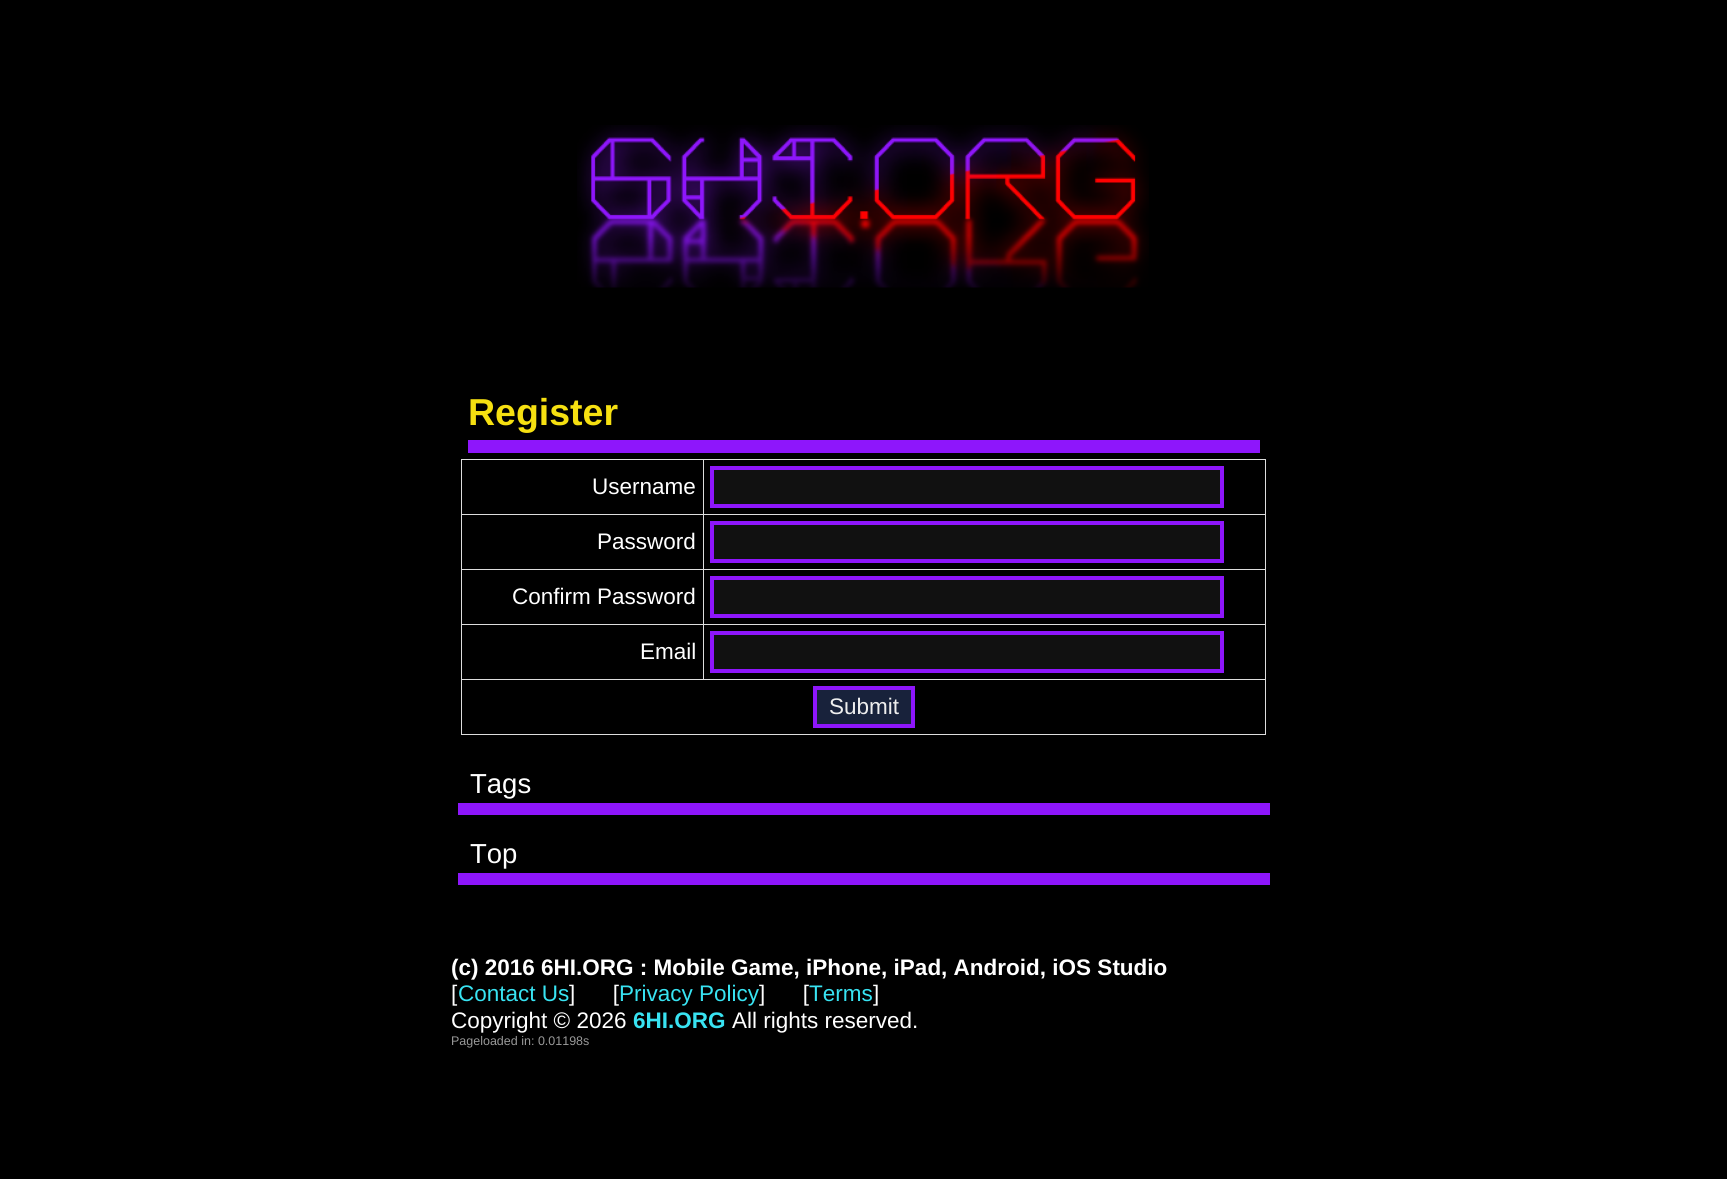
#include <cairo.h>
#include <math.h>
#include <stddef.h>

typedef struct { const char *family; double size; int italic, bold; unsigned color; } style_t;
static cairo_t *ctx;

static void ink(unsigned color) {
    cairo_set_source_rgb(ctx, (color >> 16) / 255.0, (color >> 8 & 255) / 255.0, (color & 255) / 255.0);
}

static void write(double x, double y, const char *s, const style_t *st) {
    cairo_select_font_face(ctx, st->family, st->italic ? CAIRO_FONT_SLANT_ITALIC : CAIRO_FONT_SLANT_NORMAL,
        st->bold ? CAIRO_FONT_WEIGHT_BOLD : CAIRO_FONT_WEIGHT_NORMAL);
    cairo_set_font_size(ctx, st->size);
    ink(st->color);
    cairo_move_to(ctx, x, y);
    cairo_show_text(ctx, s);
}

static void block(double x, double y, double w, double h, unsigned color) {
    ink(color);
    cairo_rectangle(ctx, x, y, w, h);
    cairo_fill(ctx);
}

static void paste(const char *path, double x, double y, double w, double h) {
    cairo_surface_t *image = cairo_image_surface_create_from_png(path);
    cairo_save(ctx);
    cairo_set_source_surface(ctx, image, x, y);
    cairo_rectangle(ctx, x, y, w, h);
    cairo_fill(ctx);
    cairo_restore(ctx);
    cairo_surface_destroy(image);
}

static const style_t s1 = {"Liberation Sans", 37.5, 0, 1, 0xf6e011};
static const style_t s2 = {"Liberation Sans", 22.5, 0, 0, 0xffffff};
static const style_t s3 = {"Liberation Sans", 22.5, 0, 0, 0xeeeeee};
static const style_t s4 = {"Liberation Sans", 27.5, 0, 0, 0xffffff};
static const style_t s5 = {"Liberation Sans", 22.5, 0, 1, 0xffffff};
static const style_t s6 = {"Liberation Sans", 22.5, 0, 0, 0x38e3f2};
static const style_t s7 = {"Liberation Sans", 22.5, 0, 1, 0x38e3f2};
static const style_t s8 = {"Liberation Sans", 12.5, 0, 0, 0x999999};

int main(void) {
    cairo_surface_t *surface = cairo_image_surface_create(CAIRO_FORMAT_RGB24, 1727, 1179);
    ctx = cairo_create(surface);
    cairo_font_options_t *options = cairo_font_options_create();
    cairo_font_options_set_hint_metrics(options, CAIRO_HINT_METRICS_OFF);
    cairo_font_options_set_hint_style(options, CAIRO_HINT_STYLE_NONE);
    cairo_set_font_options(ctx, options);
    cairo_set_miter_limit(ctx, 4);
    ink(0x000000);
    cairo_paint(ctx);
    paste("pic1.png", 577, 125, 572, 163);
    block(468, 440, 792, 13, 0x8e16fb);
    write(468, 425, "Register", &s1);
    block(703, 459, 563, 1, 0xdddddd);
    block(703, 514, 563, 1, 0xdddddd);
    block(703, 569, 563, 1, 0xdddddd);
    block(703, 624, 563, 1, 0xdddddd);
    block(461, 679, 805, 1, 0xdddddd);
    block(703, 624, 1, 56, 0xdddddd);
    block(461, 624, 243, 1, 0xdddddd);
    block(703, 569, 1, 56, 0xdddddd);
    block(461, 569, 243, 1, 0xdddddd);
    block(703, 514, 1, 56, 0xdddddd);
    block(461, 514, 243, 1, 0xdddddd);
    block(703, 459, 1, 56, 0xdddddd);
    block(461, 459, 243, 1, 0xdddddd);
    block(1265, 679, 1, 56, 0xdddddd);
    block(461, 734, 805, 1, 0xdddddd);
    block(461, 679, 1, 56, 0xdddddd);
    block(461, 624, 1, 56, 0xdddddd);
    block(461, 569, 1, 56, 0xdddddd);
    block(461, 514, 1, 56, 0xdddddd);
    block(461, 459, 1, 56, 0xdddddd);
    write(592, 494, "Username", &s2);
    block(1265, 624, 1, 56, 0xdddddd);
    block(1265, 569, 1, 56, 0xdddddd);
    block(1265, 514, 1, 56, 0xdddddd);
    block(1265, 459, 1, 56, 0xdddddd);
    ink(0x111111);
    cairo_rectangle(ctx, 712, 468, 510, 38);
    cairo_fill_preserve(ctx);
    ink(0x8e16fb);
    cairo_set_line_width(ctx, 4);
    cairo_stroke(ctx);
    write(597, 549, "Password", &s2);
    ink(0x111111);
    cairo_rectangle(ctx, 712, 523, 510, 38);
    cairo_fill_preserve(ctx);
    ink(0x8e16fb);
    cairo_stroke(ctx);
    write(512, 604, "Confirm Password", &s2);
    ink(0x111111);
    cairo_rectangle(ctx, 712, 578, 510, 38);
    cairo_fill_preserve(ctx);
    ink(0x8e16fb);
    cairo_stroke(ctx);
    write(640, 659, "Email", &s2);
    ink(0x111111);
    cairo_rectangle(ctx, 712, 633, 510, 38);
    cairo_fill_preserve(ctx);
    ink(0x8e16fb);
    cairo_stroke(ctx);
    ink(0x18223b);
    cairo_rectangle(ctx, 815, 688, 98, 38);
    cairo_fill_preserve(ctx);
    ink(0x8e16fb);
    cairo_stroke(ctx);
    write(829, 714, "Submit", &s3);
    block(458, 803, 812, 12, 0x8e16fb);
    write(470, 793, "Tags", &s4);
    block(458, 873, 812, 12, 0x8e16fb);
    write(470, 863, "Top", &s4);
    write(451, 975, "(c) 2016 6HI.ORG : Mobile Game, iPhone, iPad, Android, iOS Studio", &s5);
    write(451, 1001, "[", &s2);
    write(458, 1001, "Contact Us", &s6);
    write(569, 1001, "]      [", &s2);
    write(619, 1001, "Privacy Policy", &s6);
    write(759, 1001, "]      [", &s2);
    write(809, 1001, "Terms", &s6);
    write(873, 1001, "]", &s2);
    write(451, 1028, "Copyright © 2026", &s2);
    write(633, 1028, "6HI.ORG", &s7);
    write(732, 1028, "All rights reserved.", &s2);
    write(451, 1045, "Pageloaded in: 0.01198s", &s8);
    cairo_surface_write_to_png(surface, "screenshot.png");
    cairo_font_options_destroy(options);
    cairo_destroy(ctx);
    cairo_surface_destroy(surface);
    return 0;
}
